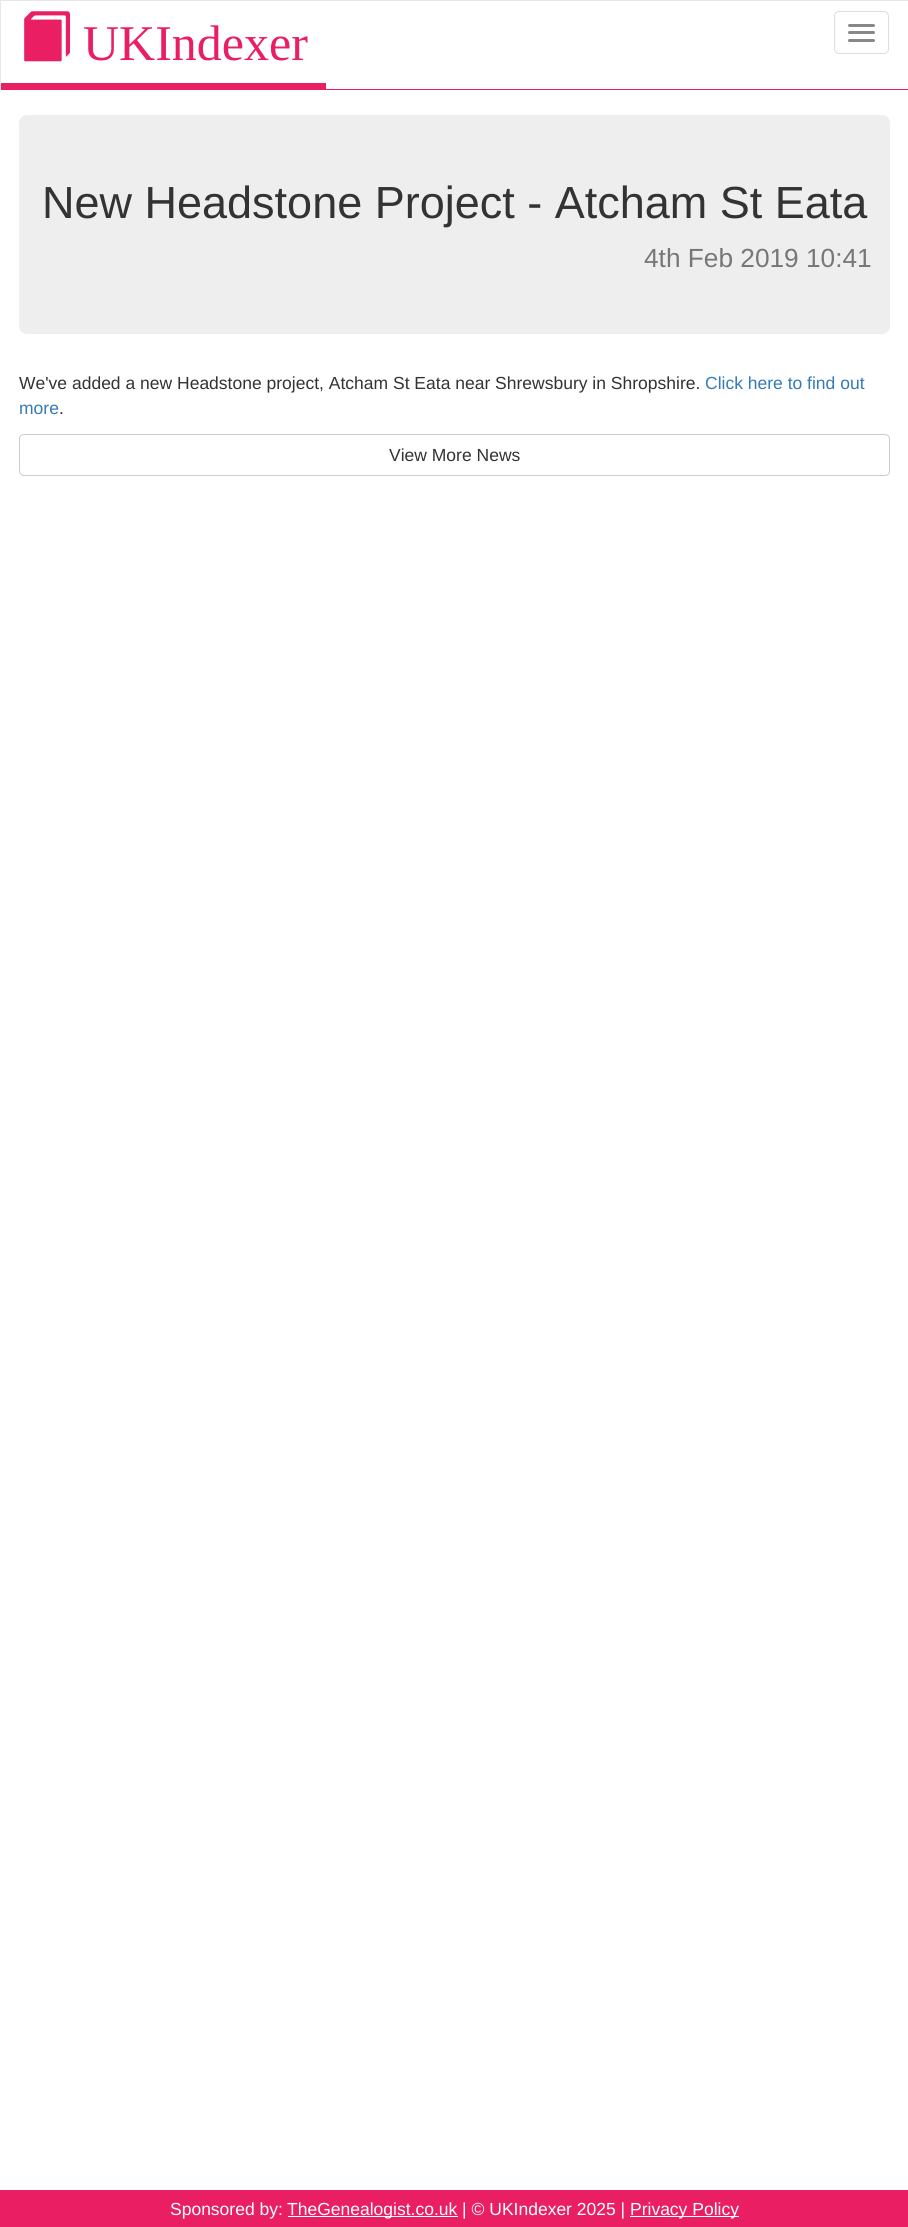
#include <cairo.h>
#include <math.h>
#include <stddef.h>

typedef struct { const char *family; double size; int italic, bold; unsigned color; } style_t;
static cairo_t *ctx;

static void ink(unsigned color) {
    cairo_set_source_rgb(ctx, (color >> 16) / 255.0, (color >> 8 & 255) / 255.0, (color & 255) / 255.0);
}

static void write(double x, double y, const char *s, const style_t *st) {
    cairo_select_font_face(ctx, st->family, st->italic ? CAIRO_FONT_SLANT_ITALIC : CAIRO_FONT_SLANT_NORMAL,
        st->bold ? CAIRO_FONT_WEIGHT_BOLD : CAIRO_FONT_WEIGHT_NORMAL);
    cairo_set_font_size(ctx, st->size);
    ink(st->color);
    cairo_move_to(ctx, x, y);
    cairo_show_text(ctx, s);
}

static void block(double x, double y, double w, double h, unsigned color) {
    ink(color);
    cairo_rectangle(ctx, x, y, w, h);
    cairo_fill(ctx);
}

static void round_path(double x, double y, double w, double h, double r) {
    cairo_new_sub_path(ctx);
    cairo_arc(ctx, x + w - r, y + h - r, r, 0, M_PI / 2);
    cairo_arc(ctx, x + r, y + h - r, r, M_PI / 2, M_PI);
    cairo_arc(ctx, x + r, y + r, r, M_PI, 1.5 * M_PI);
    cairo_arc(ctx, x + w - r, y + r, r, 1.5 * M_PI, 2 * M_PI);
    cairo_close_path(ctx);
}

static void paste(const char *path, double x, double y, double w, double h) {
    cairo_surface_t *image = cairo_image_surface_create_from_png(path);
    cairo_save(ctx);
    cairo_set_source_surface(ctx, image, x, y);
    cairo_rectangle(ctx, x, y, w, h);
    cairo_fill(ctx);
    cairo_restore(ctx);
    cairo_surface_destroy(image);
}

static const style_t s1 = {"Liberation Serif", 50, 0, 0, 0xe91e63};
static const style_t s2 = {"Liberation Sans", 45, 0, 0, 0x333333};
static const style_t s3 = {"Liberation Sans", 26.25, 0, 0, 0x777777};
static const style_t s4 = {"Liberation Sans", 17.5, 0, 0, 0x333333};
static const style_t s5 = {"Liberation Sans", 17.5, 0, 0, 0x337ab7};
static const style_t s6 = {"Liberation Sans", 17.5, 0, 0, 0xffffff};

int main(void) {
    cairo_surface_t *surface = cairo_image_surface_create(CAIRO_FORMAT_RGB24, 908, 2227);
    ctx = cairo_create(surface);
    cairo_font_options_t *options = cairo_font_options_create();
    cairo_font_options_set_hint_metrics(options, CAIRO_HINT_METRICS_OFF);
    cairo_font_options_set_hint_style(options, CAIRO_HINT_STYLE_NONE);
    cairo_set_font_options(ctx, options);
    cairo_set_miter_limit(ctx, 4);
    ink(0xffffff);
    cairo_paint(ctx);
    block(0, 0, 908, 1, 0xe7e7e7);
    block(0, 89, 908, 1, 0xe91e63);
    block(0, 0, 1, 90, 0xe7e7e7);
    block(1, 83, 325, 6, 0xe91e63);
    paste("pic1.png", 24, 11, 46, 51);
    write(83, 60, "UKIndexer", &s1);
    round_path(834.5, 11.5, 54, 42, 4.5);
    ink(0xdddddd);
    cairo_set_line_width(ctx, 1);
    cairo_stroke(ctx);
    ink(0x888888);
    round_path(848, 24, 27, 3, 1.5);
    cairo_fill(ctx);
    round_path(848, 31, 27, 3, 1.5);
    cairo_fill(ctx);
    round_path(848, 39, 27, 3, 1.5);
    cairo_fill(ctx);
    ink(0xeeeeee);
    round_path(19, 115, 871, 219, 8);
    cairo_fill(ctx);
    write(42, 218, "New Headstone Project - Atcham St Eata", &s2);
    write(644, 267, "4th Feb 2019 10:41", &s3);
    write(19, 389, "We've added a new Headstone project, Atcham St Eata near Shrewsbury in Shropshire.", &s4);
    write(705, 389, "Click here to find out", &s5);
    write(19, 414, "more", &s5);
    write(59, 414, ".", &s4);
    round_path(19.5, 434.5, 870, 41, 4.5);
    ink(0xcccccc);
    cairo_stroke(ctx);
    write(389, 461, "View More News", &s4);
    block(0, 2190, 908, 37, 0xe91e63);
    write(170, 2215, "Sponsored by:", &s6);
    block(288, 2216, 170, 1, 0xffffff);
    write(287, 2215, "TheGenealogist.co.uk | © UKIndexer 2025 |", &s6);
    block(630, 2216, 109, 1, 0xffffff);
    write(630, 2215, "Privacy Policy", &s6);
    cairo_surface_write_to_png(surface, "screenshot.png");
    cairo_font_options_destroy(options);
    cairo_destroy(ctx);
    cairo_surface_destroy(surface);
    return 0;
}
